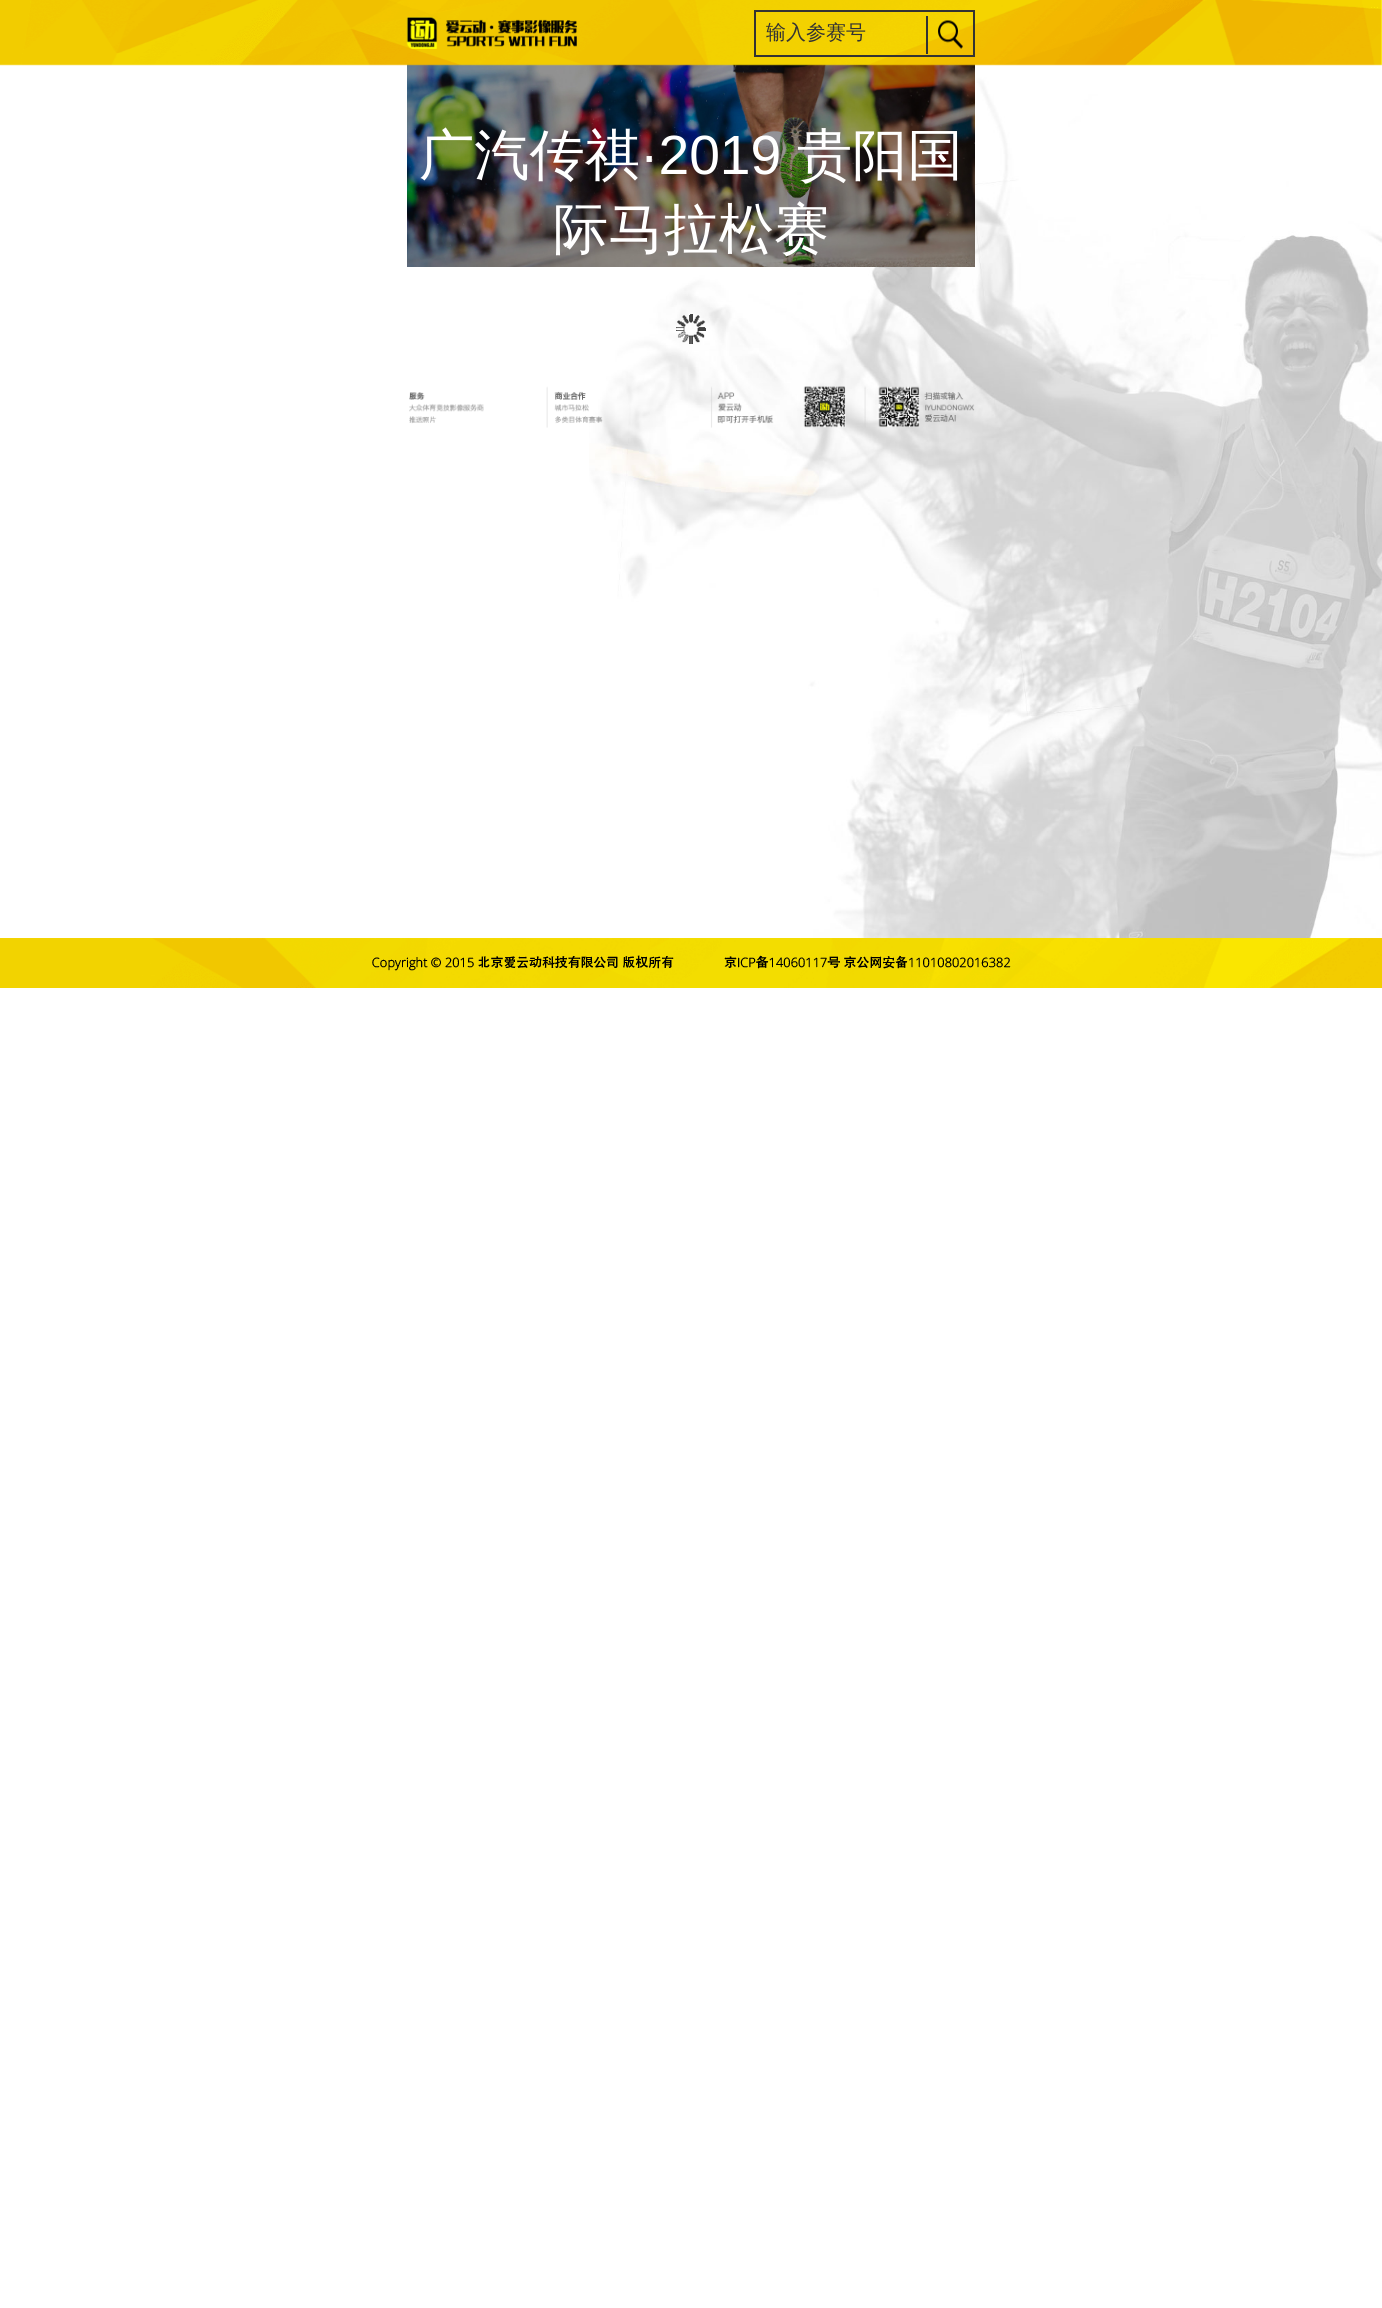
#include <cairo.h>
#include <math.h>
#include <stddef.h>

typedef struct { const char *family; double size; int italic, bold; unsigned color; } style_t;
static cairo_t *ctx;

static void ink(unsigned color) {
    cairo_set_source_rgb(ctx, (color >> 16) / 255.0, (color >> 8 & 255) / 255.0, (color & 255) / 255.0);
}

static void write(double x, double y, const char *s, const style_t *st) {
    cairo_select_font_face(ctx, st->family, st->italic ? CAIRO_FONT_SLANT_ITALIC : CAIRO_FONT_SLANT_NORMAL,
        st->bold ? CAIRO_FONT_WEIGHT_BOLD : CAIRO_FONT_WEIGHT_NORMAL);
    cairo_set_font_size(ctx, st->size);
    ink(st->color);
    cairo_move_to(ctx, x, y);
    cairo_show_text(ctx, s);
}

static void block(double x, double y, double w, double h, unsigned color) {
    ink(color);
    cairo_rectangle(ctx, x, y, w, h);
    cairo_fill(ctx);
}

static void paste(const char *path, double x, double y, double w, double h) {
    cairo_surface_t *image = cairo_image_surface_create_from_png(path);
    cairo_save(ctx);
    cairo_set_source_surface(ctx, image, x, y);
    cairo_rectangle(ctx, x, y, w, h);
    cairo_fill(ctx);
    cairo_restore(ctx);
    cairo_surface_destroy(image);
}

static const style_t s1 = {"WenQuanYi Zen Hei Medium", 20, 0, 0, 0x333333};
static const style_t s2 = {"WenQuanYi Zen Hei Medium", 55.25, 0, 0, 0xffffff};
static const style_t s3 = {"Liberation Sans", 55.25, 0, 0, 0xffffff};

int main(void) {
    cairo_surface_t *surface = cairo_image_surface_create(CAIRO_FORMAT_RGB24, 1382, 2308);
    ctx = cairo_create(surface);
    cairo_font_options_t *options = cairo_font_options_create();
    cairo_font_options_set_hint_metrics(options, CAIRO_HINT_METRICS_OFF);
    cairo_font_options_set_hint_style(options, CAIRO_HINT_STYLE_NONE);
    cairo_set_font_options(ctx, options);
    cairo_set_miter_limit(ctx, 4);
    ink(0xffffff);
    cairo_paint(ctx);
    paste("pic4.png", 589, 43, 793, 895);
    paste("pic7.png", 407, 64, 568, 203);
    paste("pic1.png", 0, 0, 1382, 66);
    paste("pic2.png", 406, 17, 171, 32);
    cairo_rectangle(ctx, 755, 11, 219, 45);
    ink(0x333333);
    cairo_stroke(ctx);
    write(766, 39, "输入参赛号", &s1);
    block(926, 16, 2, 38, 0x333333);
    paste("pic3.png", 938, 20, 25, 29);
    paste("pic5.png", 0, 938, 1382, 50);
    paste("pic6.png", 372, 955, 639, 16);
    write(419, 174, "广汽传祺", &s2);
    write(640, 174, "·2019", &s3);
    write(797, 174, "贵阳国", &s2);
    write(553, 248, "际马拉松赛", &s2);
    paste("pic8.png", 676, 314, 30, 30);
    paste("pic9.png", 409, 386, 566, 42);
    cairo_surface_write_to_png(surface, "screenshot.png");
    cairo_font_options_destroy(options);
    cairo_destroy(ctx);
    cairo_surface_destroy(surface);
    return 0;
}
